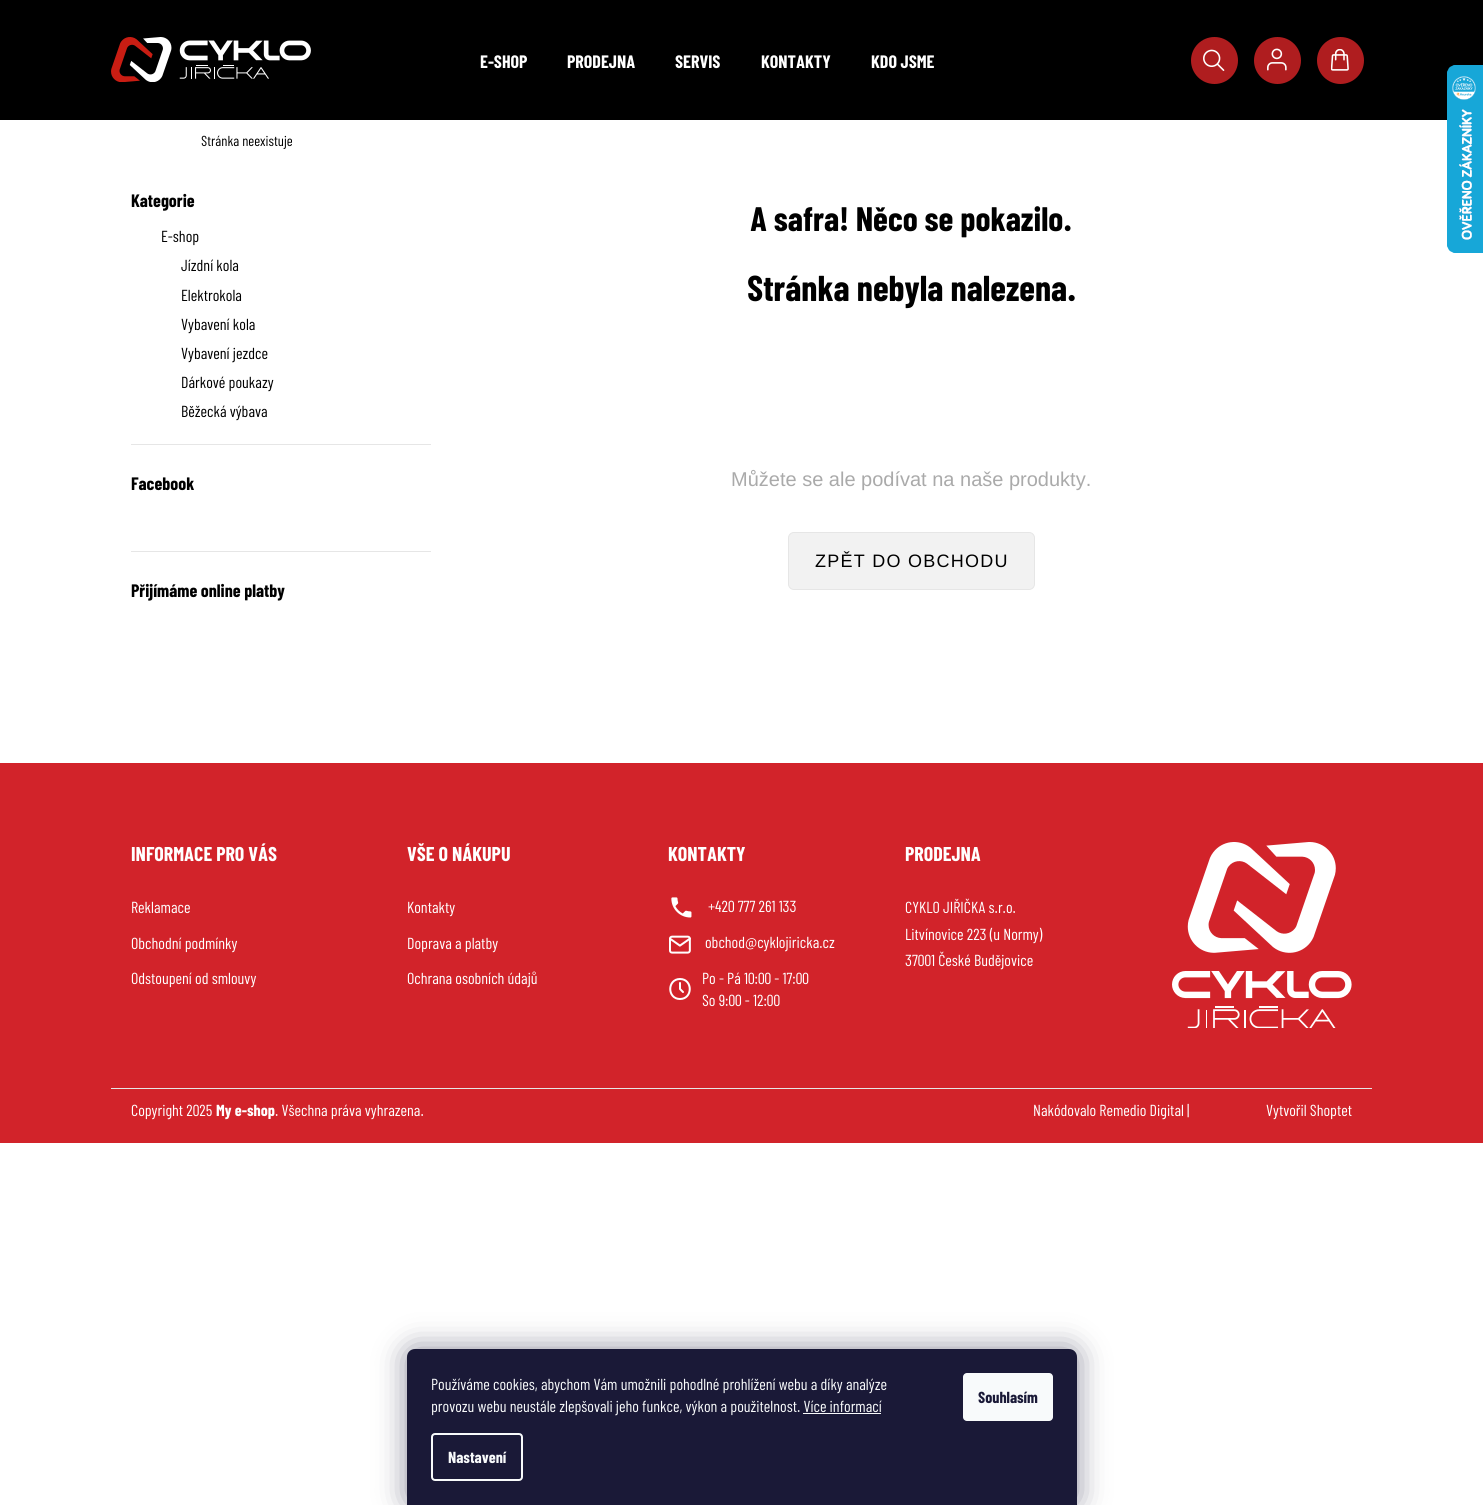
#include <cairo.h>
#include <math.h>
#include <stddef.h>

typedef struct { const char *family; double size; int italic, bold; unsigned color; } style_t;
static cairo_t *ctx;

static void ink(unsigned color) {
    cairo_set_source_rgb(ctx, (color >> 16) / 255.0, (color >> 8 & 255) / 255.0, (color & 255) / 255.0);
}

static void write(double x, double y, const char *s, const style_t *st) {
    cairo_select_font_face(ctx, st->family, st->italic ? CAIRO_FONT_SLANT_ITALIC : CAIRO_FONT_SLANT_NORMAL,
        st->bold ? CAIRO_FONT_WEIGHT_BOLD : CAIRO_FONT_WEIGHT_NORMAL);
    cairo_set_font_size(ctx, st->size);
    ink(st->color);
    cairo_move_to(ctx, x, y);
    cairo_show_text(ctx, s);
}

static void write_spaced(double x, double y, const char *s, double letter, double word) {
    cairo_move_to(ctx, x, y);
    while (*s) {
        char ch[5] = {0};
        int n = 0;
        do ch[n++] = *s++; while ((*s & 0xC0) == 0x80);
        cairo_show_text(ctx, ch);
        cairo_rel_move_to(ctx, letter + word * (*ch == ' '), 0);
    }
}

static void block(double x, double y, double w, double h, unsigned color) {
    ink(color);
    cairo_rectangle(ctx, x, y, w, h);
    cairo_fill(ctx);
}

static void round_path(double x, double y, double w, double h, double r) {
    cairo_new_sub_path(ctx);
    cairo_arc(ctx, x + w - r, y + h - r, r, 0, M_PI / 2);
    cairo_arc(ctx, x + r, y + h - r, r, M_PI / 2, M_PI);
    cairo_arc(ctx, x + r, y + r, r, M_PI, 1.5 * M_PI);
    cairo_arc(ctx, x + w - r, y + r, r, 1.5 * M_PI, 2 * M_PI);
    cairo_close_path(ctx);
}

static void blur_box(double x, double y, double w, double h, double r, double blur, double alpha) {
    cairo_push_group_with_content(ctx, CAIRO_CONTENT_ALPHA);
    cairo_set_operator(ctx, CAIRO_OPERATOR_SOURCE);
    for (int i = 15; i >= -15 && fmin(w, h) + blur * i / 3 > 0; i -= 2) {
        double e = blur * i / 6;
        cairo_set_source_rgba(ctx, 0, 0, 0, alpha * erfc((i - 1) / 8.5) / 2);
        round_path(x - e, y - e, w + 2 * e, h + 2 * e, fmax(0, fmin(r + e + blur * .6, fmin(w, h) / 2 + e)));
        cairo_fill(ctx);
    }
    cairo_pattern_t *soft = cairo_pop_group(ctx);
    cairo_mask(ctx, soft);
    cairo_pattern_destroy(soft);
}

static void paste(const char *path, double x, double y, double w, double h) {
    cairo_surface_t *image = cairo_image_surface_create_from_png(path);
    cairo_save(ctx);
    cairo_set_source_surface(ctx, image, x, y);
    cairo_rectangle(ctx, x, y, w, h);
    cairo_fill(ctx);
    cairo_restore(ctx);
    cairo_surface_destroy(image);
}

static const style_t s1 = {"Barlow Condensed", 18, 0, 1, 0xffffff};
static const style_t s2 = {"Barlow Condensed", 14.5, 0, 0, 0x000000};
static const style_t s3 = {"Barlow Condensed", 18, 0, 1, 0x000000};
static const style_t s4 = {"Barlow Condensed", 16, 0, 0, 0x000000};
static const style_t s5 = {"Barlow Condensed", 34, 0, 1, 0x000000};
static const style_t s6 = {"Barlow Condensed", 36, 0, 1, 0x000000};
static const style_t s7 = {"Liberation Sans", 20, 0, 0, 0xaaaaaa};
static const style_t s8 = {"Barlow Condensed", 20, 0, 1, 0xffffff};
static const style_t s9 = {"Barlow Condensed", 16, 0, 0, 0xffffff};
static const style_t s10 = {"Barlow Condensed", 16, 0, 1, 0xffffff};
static const style_t s11 = {"Barlow Condensed", 16, 0, 0, 0xf8fafb};
static const style_t s12 = {"Barlow Condensed", 16, 0, 1, 0xf8fafb};
static const style_t s13 = {"Barlow Condensed", 16, 0, 1, 0x1a1937};

int main(void) {
    cairo_surface_t *surface = cairo_image_surface_create(CAIRO_FORMAT_RGB24, 1483, 1505);
    ctx = cairo_create(surface);
    cairo_font_options_t *options = cairo_font_options_create();
    cairo_font_options_set_hint_metrics(options, CAIRO_HINT_METRICS_OFF);
    cairo_font_options_set_hint_style(options, CAIRO_HINT_STYLE_NONE);
    cairo_set_font_options(ctx, options);
    cairo_set_miter_limit(ctx, 4);
    ink(0xffffff);
    cairo_paint(ctx);
    block(0, 0, 1483, 120, 0x000000);
    paste("pic1.png", 111, 37, 200, 45);
    write(480, 68, "E-SHOP", &s1);
    write(567, 68, "PRODEJNA", &s1);
    write(675, 68, "SERVIS", &s1);
    write(761, 68, "KONTAKTY", &s1);
    write(871, 68, "KDO JSME", &s1);
    ink(0xaf1d1f);
    cairo_new_path(ctx);
    cairo_arc(ctx, 1214.5, 60.5, 23.5, 0, 2 * M_PI);
    cairo_fill(ctx);
    paste("pic2.png", 1203, 49, 22, 22);
    cairo_arc(ctx, 1277.5, 60.5, 23.5, 0, 2 * M_PI);
    cairo_fill(ctx);
    paste("pic3.png", 1267, 48, 20, 23);
    cairo_arc(ctx, 1340.5, 60.5, 23.5, 0, 2 * M_PI);
    cairo_fill(ctx);
    paste("pic4.png", 1331, 49, 18, 22);
    write(201, 146, "Stránka neexistuje", &s2);
    write(131, 207, "Kategorie", &s3);
    write(161, 242, "E-shop", &s4);
    write(181, 271, "Jízdní kola", &s4);
    write(181, 301, "Elektrokola", &s4);
    write(181, 330, "Vybavení kola", &s4);
    write(181, 359, "Vybavení jezdce", &s4);
    write(181, 388, "Dárkové poukazy", &s4);
    write(181, 417, "Běžecká výbava", &s4);
    block(131, 444, 300, 1, 0xe6e6e6);
    write(131, 490, "Facebook", &s3);
    block(131, 551, 300, 1, 0xe6e6e6);
    write(131, 597, "Přijímáme online platby", &s3);
    write(750, 231, "A safra! Něco se pokazilo.", &s5);
    write(747, 301, "Stránka nebyla nalezena.", &s6);
    write(731, 486, "Můžete se ale podívat na naše produkty.", &s7);
    ink(0xf2f2f2);
    round_path(788.5, 532.5, 246, 57, 5.5);
    cairo_fill_preserve(ctx);
    ink(0xe6e6e6);
    cairo_set_line_width(ctx, 1);
    cairo_stroke(ctx);
    cairo_set_font_size(ctx, 18);
    ink(0x000000);
    write_spaced(815, 567, "ZPĚT DO OBCHODU", 1.25, 0);
    block(0, 763, 1483, 380, 0xd2232a);
    write(131, 861, "INFORMACE PRO VÁS", &s8);
    write(131, 913, "Reklamace", &s9);
    write(131, 949, "Obchodní podmínky", &s9);
    write(131, 984, "Odstoupení od smlouvy", &s9);
    write(407, 861, "VŠE O NÁKUPU", &s8);
    write(407, 913, "Kontakty", &s9);
    write(407, 949, "Doprava a platby", &s9);
    write(407, 984, "Ochrana osobních údajů", &s9);
    write(668, 861, "KONTAKTY", &s8);
    paste("pic5.png", 671, 897, 21, 21);
    write(708, 912, "+420 777 261 133", &s9);
    paste("pic6.png", 669, 935, 22, 19);
    write(705, 948, "obchod@cyklojiricka.cz", &s9);
    cairo_new_path(ctx);
    cairo_move_to(ctx, 680, 999);
    cairo_curve_to(ctx, 693, 999, 693, 979, 680, 979);
    cairo_curve_to(ctx, 667, 979, 667, 999, 680, 999);
    cairo_close_path(ctx);
    cairo_move_to(ctx, 680, 983);
    cairo_line_to(ctx, 680, 989);
    cairo_line_to(ctx, 683, 992);
    cairo_set_line_width(ctx, 2);
    cairo_set_line_cap(ctx, CAIRO_LINE_CAP_ROUND);
    cairo_set_line_join(ctx, CAIRO_LINE_JOIN_ROUND);
    cairo_stroke(ctx);
    write(702, 984, "Po - Pá 10:00 - 17:00", &s9);
    write(702, 1006, "So 9:00 - 12:00", &s9);
    write(905, 861, "PRODEJNA", &s8);
    write(905, 913, "CYKLO JIŘIČKA s.r.o.", &s9);
    write(905, 940, "Litvínovice 223 (u Normy)", &s9);
    write(905, 966, "37001 České Budějovice", &s9);
    paste("pic7.png", 1172, 842, 180, 186);
    block(111, 1088, 1261, 1, 0xe6e6e6);
    write(131, 1116, "Copyright 2025", &s9);
    write(216, 1116, "My e-shop", &s10);
    write(275, 1116, ". Všechna práva vyhrazena.", &s9);
    write(1033, 1116, "Nakódovalo Remedio Digital |", &s9);
    write(1266, 1116, "Vytvořil Shoptet", &s9);
    paste("pic8.png", 1447, 65, 36, 188);
    ink(0x1b1939);
    blur_box(407, 1349, 670, 156, 8, 15, 0.5);
    ink(0x1a1937);
    cairo_new_path(ctx);
    cairo_move_to(ctx, 415, 1349);
    cairo_line_to(ctx, 1069, 1349);
    cairo_curve_to(ctx, 1073.5, 1349, 1077, 1352.5, 1077, 1357);
    cairo_line_to(ctx, 1077, 1505);
    cairo_line_to(ctx, 407, 1505);
    cairo_line_to(ctx, 407, 1357);
    cairo_curve_to(ctx, 407, 1352.5, 410.5, 1349, 415, 1349);
    cairo_close_path(ctx);
    cairo_fill(ctx);
    write(431, 1390, "Používáme cookies, abychom Vám umožnili pohodlné prohlížení webu a díky analýze", &s11);
    write(431, 1412, "provozu webu neustále zlepšovali jeho funkce, výkon a použitelnost. Více informací", &s11);
    block(803, 1413, 78, 1, 0xf8fafb);
    round_path(432, 1434, 90, 46, 3);
    cairo_set_line_cap(ctx, CAIRO_LINE_CAP_BUTT);
    cairo_set_line_join(ctx, CAIRO_LINE_JOIN_MITER);
    cairo_stroke(ctx);
    write(448, 1463, "Nastavení", &s12);
    round_path(963, 1373, 90, 48, 4);
    cairo_fill(ctx);
    write(978, 1403, "Souhlasím", &s13);
    cairo_surface_write_to_png(surface, "screenshot.png");
    cairo_font_options_destroy(options);
    cairo_destroy(ctx);
    cairo_surface_destroy(surface);
    return 0;
}
